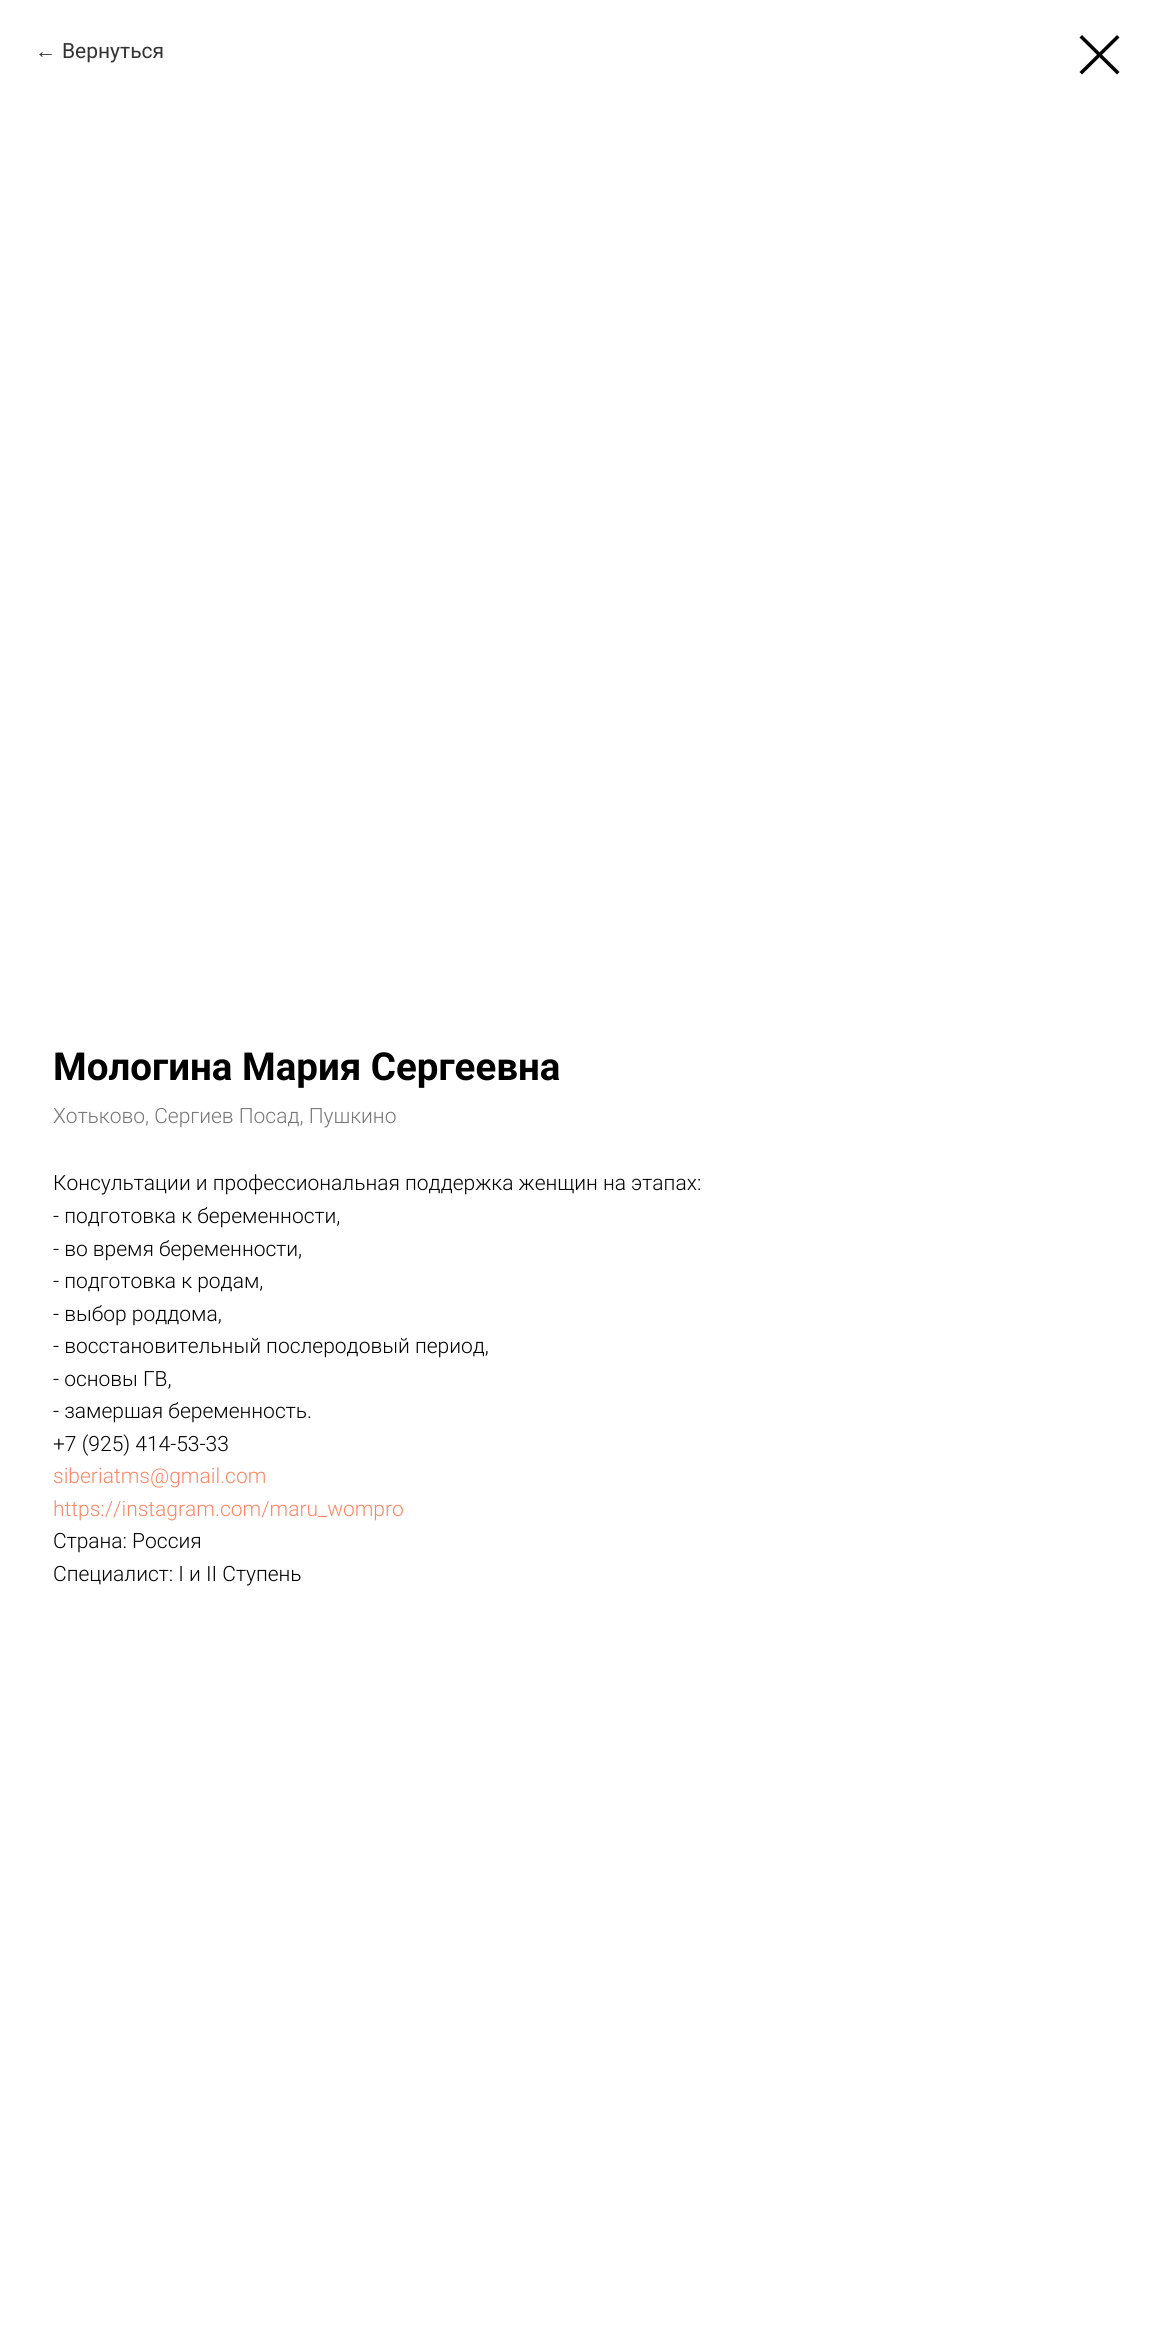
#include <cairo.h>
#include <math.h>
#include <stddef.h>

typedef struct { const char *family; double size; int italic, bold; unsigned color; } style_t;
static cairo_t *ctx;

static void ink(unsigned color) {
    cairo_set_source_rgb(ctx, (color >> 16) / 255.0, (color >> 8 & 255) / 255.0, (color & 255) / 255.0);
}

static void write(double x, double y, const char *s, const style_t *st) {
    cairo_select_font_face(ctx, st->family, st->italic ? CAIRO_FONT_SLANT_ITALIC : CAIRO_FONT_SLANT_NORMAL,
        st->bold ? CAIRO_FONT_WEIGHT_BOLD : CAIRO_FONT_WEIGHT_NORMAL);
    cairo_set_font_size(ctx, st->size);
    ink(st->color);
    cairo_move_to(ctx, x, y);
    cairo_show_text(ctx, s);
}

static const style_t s1 = {"Liberation Sans", 21, 0, 0, 0x333333};
static const style_t s2 = {"Roboto", 21, 0, 0, 0x333333};
static const style_t s3 = {"Roboto", 38.5, 0, 1, 0x000000};
static const style_t s4 = {"Roboto Light", 21, 0, 0, 0x777777};
static const style_t s5 = {"Roboto Light", 21, 0, 0, 0x000000};
static const style_t s6 = {"Roboto Light", 21, 0, 0, 0xff8562};

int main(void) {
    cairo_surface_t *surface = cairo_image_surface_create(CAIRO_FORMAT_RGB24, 1155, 2343);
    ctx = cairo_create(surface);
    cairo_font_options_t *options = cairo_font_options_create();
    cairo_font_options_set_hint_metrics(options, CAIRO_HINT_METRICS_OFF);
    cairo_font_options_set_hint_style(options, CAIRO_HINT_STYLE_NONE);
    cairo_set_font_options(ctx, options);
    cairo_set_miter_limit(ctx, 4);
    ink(0xffffff);
    cairo_paint(ctx);
    write(35, 58, "←", &s1);
    write(62, 58, "Вернуться", &s2);
    ink(0x000000);
    cairo_set_fill_rule(ctx, CAIRO_FILL_RULE_EVEN_ODD);
    cairo_new_path(ctx);
    cairo_move_to(ctx, 1079.5, 37.5);
    cairo_line_to(ctx, 1082, 35);
    cairo_line_to(ctx, 1119.5, 72);
    cairo_line_to(ctx, 1117, 74.5);
    cairo_close_path(ctx);
    cairo_fill(ctx);
    cairo_new_path(ctx);
    cairo_move_to(ctx, 1117, 35);
    cairo_line_to(ctx, 1119.5, 37.5);
    cairo_line_to(ctx, 1082, 74.5);
    cairo_line_to(ctx, 1079.5, 72);
    cairo_close_path(ctx);
    cairo_fill(ctx);
    write(53, 1080, "Мологина Мария Сергеевна", &s3);
    write(53, 1123, "Хотьково, Сергиев Посад, Пушкино", &s4);
    write(53, 1190, "Консультации и профессиональная поддержка женщин на этапах:", &s5);
    write(53, 1223, "- подготовка к беременности,", &s5);
    write(53, 1256, "- во время беременности,", &s5);
    write(53, 1288, "- подготовка к родам,", &s5);
    write(53, 1321, "- выбор роддома,", &s5);
    write(53, 1353, "- восстановительный послеродовый период,", &s5);
    write(53, 1386, "- основы ГВ,", &s5);
    write(53, 1418, "- замершая беременность.", &s5);
    write(53, 1451, "+7 (925) 414-53-33", &s5);
    write(53, 1483, "siberiatms@gmail.com", &s6);
    write(53, 1516, "https://instagram.com/maru_wompro", &s6);
    write(53, 1548, "Страна: Россия", &s5);
    write(53, 1581, "Специалист: I и II Ступень", &s5);
    cairo_surface_write_to_png(surface, "screenshot.png");
    cairo_font_options_destroy(options);
    cairo_destroy(ctx);
    cairo_surface_destroy(surface);
    return 0;
}
